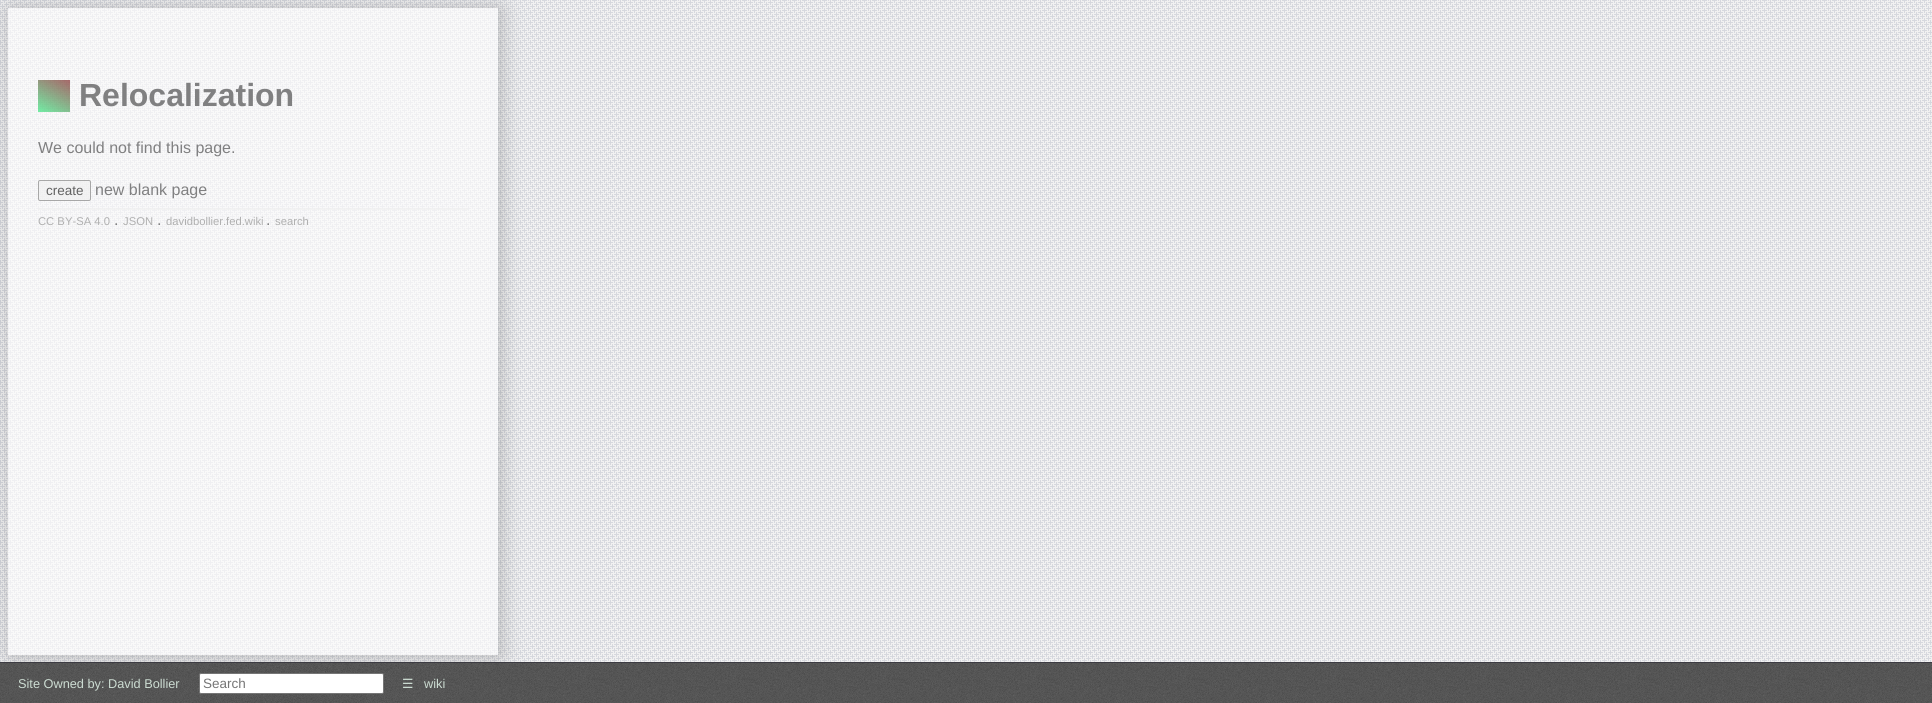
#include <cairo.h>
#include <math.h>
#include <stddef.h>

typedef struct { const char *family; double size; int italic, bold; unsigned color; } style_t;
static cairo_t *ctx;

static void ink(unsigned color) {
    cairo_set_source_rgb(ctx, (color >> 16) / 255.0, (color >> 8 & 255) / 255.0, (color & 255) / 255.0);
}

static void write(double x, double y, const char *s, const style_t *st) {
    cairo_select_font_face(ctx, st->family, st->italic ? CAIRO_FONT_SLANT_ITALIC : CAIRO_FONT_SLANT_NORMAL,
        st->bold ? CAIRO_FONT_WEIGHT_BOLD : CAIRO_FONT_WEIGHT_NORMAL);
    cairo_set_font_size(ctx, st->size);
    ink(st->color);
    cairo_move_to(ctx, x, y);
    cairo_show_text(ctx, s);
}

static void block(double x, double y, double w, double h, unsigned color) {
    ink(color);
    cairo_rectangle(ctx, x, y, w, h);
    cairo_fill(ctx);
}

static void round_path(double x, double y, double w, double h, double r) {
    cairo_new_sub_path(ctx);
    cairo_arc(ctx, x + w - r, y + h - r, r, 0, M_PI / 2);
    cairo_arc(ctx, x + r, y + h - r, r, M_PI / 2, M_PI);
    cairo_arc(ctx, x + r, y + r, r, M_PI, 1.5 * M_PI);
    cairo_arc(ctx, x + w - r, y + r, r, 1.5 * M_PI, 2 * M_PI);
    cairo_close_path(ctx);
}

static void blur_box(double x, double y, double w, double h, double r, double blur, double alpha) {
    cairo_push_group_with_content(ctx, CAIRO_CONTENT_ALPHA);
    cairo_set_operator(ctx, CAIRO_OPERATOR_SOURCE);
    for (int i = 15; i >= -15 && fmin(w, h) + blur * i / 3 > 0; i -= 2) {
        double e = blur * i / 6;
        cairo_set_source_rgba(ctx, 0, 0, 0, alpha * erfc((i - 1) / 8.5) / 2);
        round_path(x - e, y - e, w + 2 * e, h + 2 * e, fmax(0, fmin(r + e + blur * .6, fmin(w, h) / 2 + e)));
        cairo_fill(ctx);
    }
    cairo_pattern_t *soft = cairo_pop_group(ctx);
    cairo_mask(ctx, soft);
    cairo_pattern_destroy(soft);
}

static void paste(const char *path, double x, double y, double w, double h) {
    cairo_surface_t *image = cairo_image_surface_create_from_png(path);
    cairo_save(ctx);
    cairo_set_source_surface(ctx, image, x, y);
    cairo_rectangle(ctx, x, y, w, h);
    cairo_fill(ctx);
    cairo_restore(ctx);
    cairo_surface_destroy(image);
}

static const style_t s1 = {"Liberation Sans", 32, 0, 1, 0x808081};
static const style_t s2 = {"Liberation Sans", 16, 0, 0, 0x808081};
static const style_t s3 = {"Liberation Sans", 13.5, 0, 0, 0x616161};
static const style_t s4 = {"Liberation Sans", 11.25, 0, 0, 0xafafaf};
static const style_t s5 = {"Liberation Sans", 12.75, 0, 0, 0xccdcd2};
static const style_t s6 = {"Liberation Sans", 13.5, 0, 0, 0x757575};
static const style_t s7 = {"DejaVu Sans", 12.75, 0, 0, 0xccdcd2};

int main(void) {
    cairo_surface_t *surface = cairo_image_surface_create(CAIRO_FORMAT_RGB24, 1932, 703);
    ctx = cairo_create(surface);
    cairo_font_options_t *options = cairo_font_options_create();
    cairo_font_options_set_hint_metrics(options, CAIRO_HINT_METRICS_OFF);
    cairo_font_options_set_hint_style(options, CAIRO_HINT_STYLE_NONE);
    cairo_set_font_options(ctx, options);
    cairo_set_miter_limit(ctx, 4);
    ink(0xffffff);
    cairo_paint(ctx);
    paste("pic1.png", 0, 0, 1932, 662);
    cairo_save(ctx);
    cairo_set_fill_rule(ctx, CAIRO_FILL_RULE_EVEN_ODD);
    cairo_new_path(ctx);
    cairo_move_to(ctx, 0, 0);
    cairo_line_to(ctx, 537, 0);
    cairo_line_to(ctx, 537, 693);
    cairo_line_to(ctx, 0, 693);
    cairo_close_path(ctx);
    cairo_move_to(ctx, 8, 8);
    cairo_line_to(ctx, 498, 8);
    cairo_line_to(ctx, 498, 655);
    cairo_line_to(ctx, 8, 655);
    cairo_close_path(ctx);
    cairo_clip(ctx);
    ink(0x000000);
    blur_box(10, 9, 490, 647, 0, 12, 0.24);
    cairo_restore(ctx);
    cairo_set_source_rgba(ctx, 1, 1, 1, 0.6);
    cairo_rectangle(ctx, 8, 8, 490, 647);
    cairo_fill(ctx);
    paste("pic2.png", 38, 80, 32, 32);
    write(79, 106, "Relocalization", &s1);
    write(38, 153, "We could not find this page.", &s2);
    cairo_set_source_rgba(ctx, 0.937, 0.937, 0.937, 0.6);
    round_path(38, 180, 53, 21, 2);
    cairo_fill(ctx);
    round_path(38.5, 180.5, 52, 20, 1.5);
    cairo_set_source_rgba(ctx, 0.463, 0.463, 0.463, 0.6);
    cairo_set_line_width(ctx, 1);
    cairo_stroke(ctx);
    write(46, 195, "create", &s3);
    write(95, 195, "new blank page", &s2);
    cairo_set_source_rgba(ctx, 0.933, 0.933, 0.933, 0.6);
    cairo_rectangle(ctx, 38, 208, 430, 2);
    cairo_fill(ctx);
    write(38, 225, "CC BY-SA 4.0", &s4);
    write(114, 225, ".", &s2);
    write(123, 225, "JSON", &s4);
    write(157, 225, ".", &s2);
    write(166, 225, "davidbollier.fed.wiki", &s4);
    write(266, 225, ".", &s2);
    write(275, 225, "search", &s4);
    paste("pic3.png", 0, 663, 1932, 40);
    block(0, 662, 1932, 1, 0x3d3c43);
    write(18, 688, "Site Owned by: David Bollier", &s5);
    ink(0xffffff);
    round_path(199.5, 673.5, 184, 20, 1.5);
    cairo_fill_preserve(ctx);
    ink(0x767676);
    cairo_stroke(ctx);
    write(203, 688, "Search", &s6);
    write(402, 688, "☰", &s7);
    write(424, 688, "wiki", &s5);
    cairo_surface_write_to_png(surface, "screenshot.png");
    cairo_font_options_destroy(options);
    cairo_destroy(ctx);
    cairo_surface_destroy(surface);
    return 0;
}
